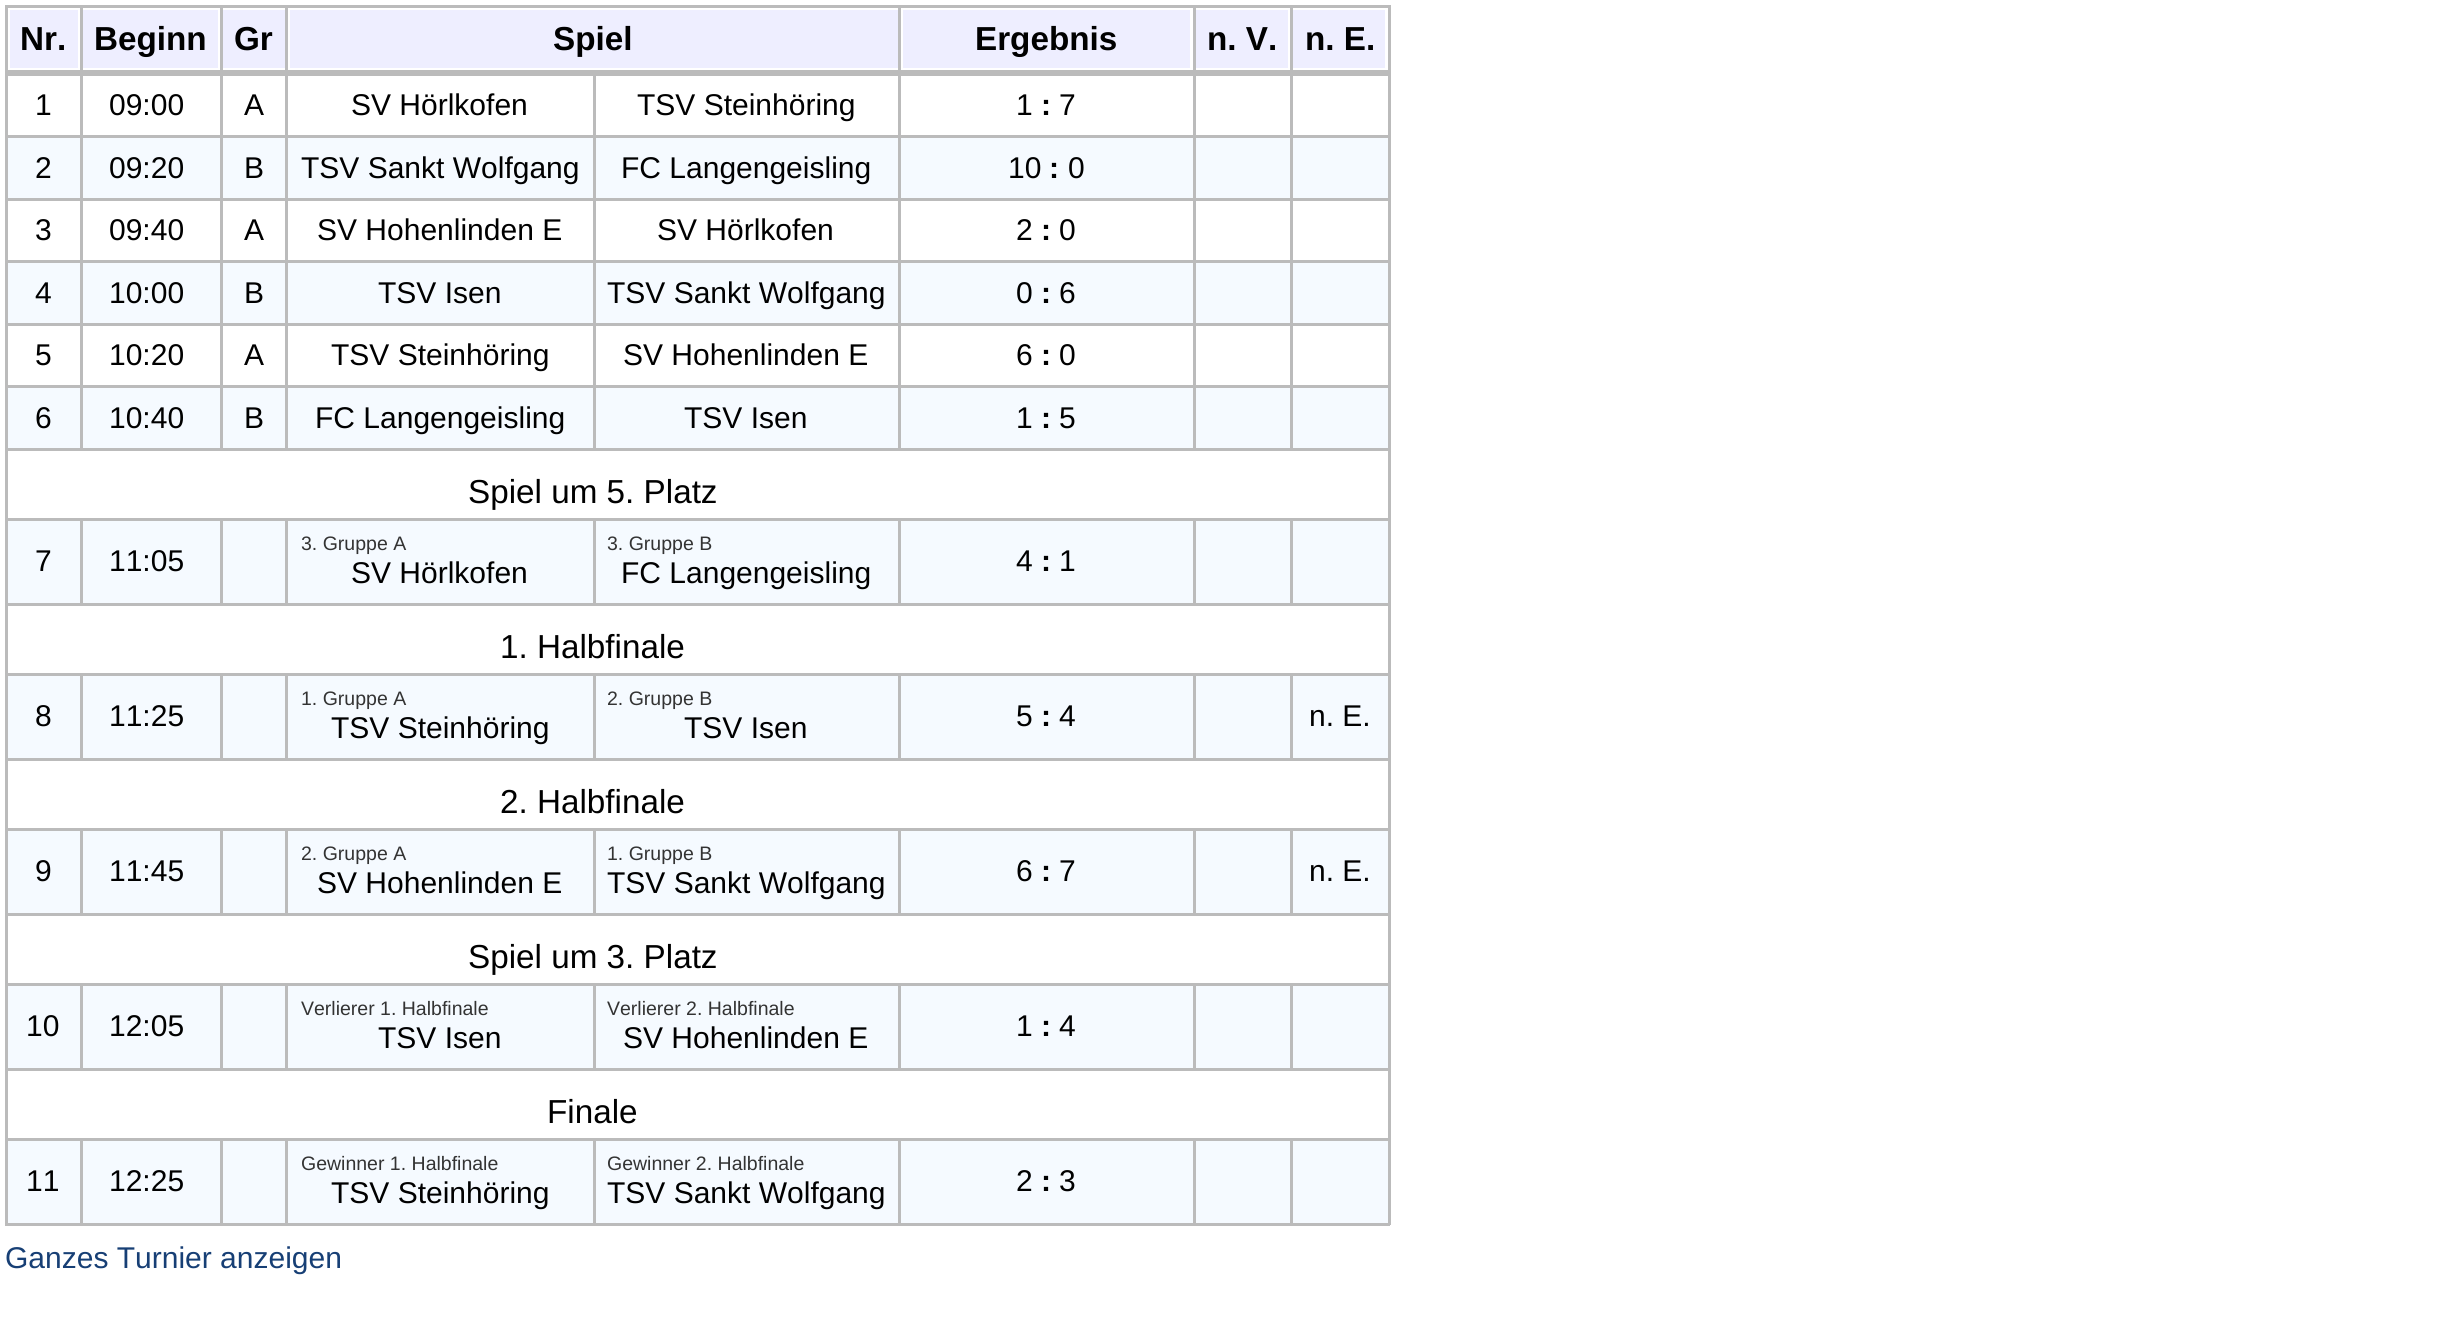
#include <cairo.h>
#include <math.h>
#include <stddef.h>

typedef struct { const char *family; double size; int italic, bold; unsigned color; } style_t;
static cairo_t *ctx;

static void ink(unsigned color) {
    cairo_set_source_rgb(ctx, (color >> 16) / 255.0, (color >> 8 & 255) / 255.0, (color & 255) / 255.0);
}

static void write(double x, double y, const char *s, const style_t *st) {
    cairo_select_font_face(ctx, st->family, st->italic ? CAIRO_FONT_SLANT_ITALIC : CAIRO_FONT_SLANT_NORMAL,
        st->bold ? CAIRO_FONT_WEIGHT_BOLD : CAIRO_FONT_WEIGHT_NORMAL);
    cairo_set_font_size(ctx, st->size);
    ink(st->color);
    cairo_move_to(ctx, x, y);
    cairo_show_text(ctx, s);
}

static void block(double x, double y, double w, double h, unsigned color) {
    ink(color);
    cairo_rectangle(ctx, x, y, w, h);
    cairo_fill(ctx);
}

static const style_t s1 = {"Liberation Sans", 33.25, 0, 1, 0x000000};
static const style_t s2 = {"Liberation Sans", 30, 0, 0, 0x000000};
static const style_t s3 = {"Liberation Sans", 30, 0, 1, 0x000000};
static const style_t s4 = {"Liberation Sans", 33.25, 0, 0, 0x000000};
static const style_t s5 = {"Liberation Sans", 19.5, 0, 0, 0x333333};
static const style_t s6 = {"Liberation Sans", 30, 0, 0, 0x173f75};

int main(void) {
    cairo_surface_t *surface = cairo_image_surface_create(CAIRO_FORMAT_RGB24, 2449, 1322);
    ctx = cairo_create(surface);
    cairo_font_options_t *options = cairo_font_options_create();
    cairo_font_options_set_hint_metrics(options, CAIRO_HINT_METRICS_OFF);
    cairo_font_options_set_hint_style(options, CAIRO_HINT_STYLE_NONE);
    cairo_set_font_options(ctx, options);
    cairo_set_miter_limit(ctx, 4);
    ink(0xffffff);
    cairo_paint(ctx);
    block(5, 5, 1385, 3, 0xbbbbbb);
    block(1388, 5, 3, 1220, 0xbbbbbb);
    block(5, 1223, 1385, 3, 0xbbbbbb);
    block(5, 5, 3, 1220, 0xbbbbbb);
    block(10, 10, 68, 58, 0xeeeeff);
    write(20, 50, "Nr.", &s1);
    block(83, 10, 135, 58, 0xeeeeff);
    write(94, 50, "Beginn", &s1);
    block(223, 10, 62, 58, 0xeeeeff);
    write(234, 50, "Gr", &s1);
    block(290, 10, 608, 58, 0xeeeeff);
    write(553, 50, "Spiel", &s1);
    block(903, 10, 287, 58, 0xeeeeff);
    write(975, 50, "Ergebnis", &s1);
    block(1196, 10, 92, 58, 0xeeeeff);
    write(1207, 50, "n. V.", &s1);
    block(1293, 10, 92, 58, 0xeeeeff);
    block(1290, 75, 100, 1, 0xbbbbbb);
    block(1290, 135, 100, 3, 0xbbbbbb);
    block(1290, 198, 100, 3, 0xbbbbbb);
    block(1290, 260, 100, 3, 0xbbbbbb);
    block(1290, 323, 100, 3, 0xbbbbbb);
    block(1290, 385, 100, 3, 0xbbbbbb);
    block(1290, 448, 100, 3, 0xbbbbbb);
    block(1290, 385, 3, 65, 0xbbbbbb);
    block(1193, 385, 100, 3, 0xbbbbbb);
    block(1290, 323, 3, 65, 0xbbbbbb);
    block(1193, 323, 100, 3, 0xbbbbbb);
    block(1290, 260, 3, 65, 0xbbbbbb);
    block(1193, 260, 100, 3, 0xbbbbbb);
    block(1290, 198, 3, 65, 0xbbbbbb);
    block(1193, 198, 100, 3, 0xbbbbbb);
    block(1290, 135, 3, 65, 0xbbbbbb);
    block(1193, 135, 100, 3, 0xbbbbbb);
    block(1290, 5, 3, 133, 0xbbbbbb);
    block(1193, 75, 100, 1, 0xbbbbbb);
    block(1193, 448, 100, 3, 0xbbbbbb);
    block(1193, 385, 3, 65, 0xbbbbbb);
    block(898, 385, 297, 3, 0xbbbbbb);
    block(1193, 323, 3, 65, 0xbbbbbb);
    block(898, 323, 297, 3, 0xbbbbbb);
    block(1193, 260, 3, 65, 0xbbbbbb);
    block(898, 260, 297, 3, 0xbbbbbb);
    block(1193, 198, 3, 65, 0xbbbbbb);
    block(898, 198, 297, 3, 0xbbbbbb);
    block(1193, 135, 3, 65, 0xbbbbbb);
    block(898, 135, 297, 3, 0xbbbbbb);
    block(1193, 5, 3, 133, 0xbbbbbb);
    block(898, 75, 297, 1, 0xbbbbbb);
    block(898, 448, 297, 3, 0xbbbbbb);
    block(898, 385, 3, 65, 0xbbbbbb);
    block(593, 385, 307, 3, 0xbbbbbb);
    block(898, 323, 3, 65, 0xbbbbbb);
    block(593, 323, 307, 3, 0xbbbbbb);
    block(898, 260, 3, 65, 0xbbbbbb);
    block(593, 260, 307, 3, 0xbbbbbb);
    block(898, 198, 3, 65, 0xbbbbbb);
    block(593, 198, 307, 3, 0xbbbbbb);
    block(898, 135, 3, 65, 0xbbbbbb);
    block(593, 135, 307, 3, 0xbbbbbb);
    block(898, 5, 3, 133, 0xbbbbbb);
    block(593, 75, 307, 1, 0xbbbbbb);
    block(593, 448, 307, 3, 0xbbbbbb);
    block(593, 385, 3, 65, 0xbbbbbb);
    block(285, 385, 310, 3, 0xbbbbbb);
    block(593, 323, 3, 65, 0xbbbbbb);
    block(285, 323, 310, 3, 0xbbbbbb);
    block(593, 260, 3, 65, 0xbbbbbb);
    block(285, 260, 310, 3, 0xbbbbbb);
    block(593, 198, 3, 65, 0xbbbbbb);
    block(285, 198, 310, 3, 0xbbbbbb);
    block(593, 135, 3, 65, 0xbbbbbb);
    block(285, 135, 310, 3, 0xbbbbbb);
    block(593, 73, 3, 65, 0xbbbbbb);
    block(285, 75, 310, 1, 0xbbbbbb);
    block(285, 448, 310, 3, 0xbbbbbb);
    block(285, 385, 3, 65, 0xbbbbbb);
    block(220, 385, 68, 3, 0xbbbbbb);
    block(285, 323, 3, 65, 0xbbbbbb);
    block(220, 323, 68, 3, 0xbbbbbb);
    block(285, 260, 3, 65, 0xbbbbbb);
    block(220, 260, 68, 3, 0xbbbbbb);
    block(285, 198, 3, 65, 0xbbbbbb);
    block(220, 198, 68, 3, 0xbbbbbb);
    block(285, 135, 3, 65, 0xbbbbbb);
    block(220, 135, 68, 3, 0xbbbbbb);
    block(285, 5, 3, 133, 0xbbbbbb);
    block(220, 75, 68, 1, 0xbbbbbb);
    block(220, 448, 68, 3, 0xbbbbbb);
    block(220, 385, 3, 65, 0xbbbbbb);
    block(80, 385, 143, 3, 0xbbbbbb);
    block(220, 323, 3, 65, 0xbbbbbb);
    block(80, 323, 143, 3, 0xbbbbbb);
    block(220, 260, 3, 65, 0xbbbbbb);
    block(80, 260, 143, 3, 0xbbbbbb);
    block(220, 198, 3, 65, 0xbbbbbb);
    block(80, 198, 143, 3, 0xbbbbbb);
    block(220, 135, 3, 65, 0xbbbbbb);
    block(80, 135, 143, 3, 0xbbbbbb);
    block(220, 5, 3, 133, 0xbbbbbb);
    block(80, 75, 143, 1, 0xbbbbbb);
    block(80, 448, 143, 3, 0xbbbbbb);
    block(80, 385, 3, 65, 0xbbbbbb);
    block(5, 385, 78, 3, 0xbbbbbb);
    block(80, 323, 3, 65, 0xbbbbbb);
    block(5, 323, 78, 3, 0xbbbbbb);
    block(80, 260, 3, 65, 0xbbbbbb);
    block(5, 260, 78, 3, 0xbbbbbb);
    block(80, 198, 3, 65, 0xbbbbbb);
    block(5, 198, 78, 3, 0xbbbbbb);
    block(80, 135, 3, 65, 0xbbbbbb);
    block(5, 135, 78, 3, 0xbbbbbb);
    block(80, 5, 3, 133, 0xbbbbbb);
    block(5, 70, 1385, 5, 0xbbbbbb);
    write(1305, 50, "n. E.", &s1);
    block(5, 75, 78, 1, 0xbbbbbb);
    write(35, 115, "1", &s2);
    write(109, 115, "09:00", &s2);
    write(244, 115, "A", &s2);
    write(351, 115, "SV Hörlkofen", &s2);
    write(637, 115, "TSV Steinhöring", &s2);
    write(1016, 115, "1", &s2);
    write(1041, 115, ":", &s3);
    write(1059, 115, "7", &s2);
    block(8, 138, 72, 60, 0xf5faff);
    write(35, 178, "2", &s2);
    block(83, 138, 137, 60, 0xf5faff);
    write(109, 178, "09:20", &s2);
    block(223, 138, 62, 60, 0xf5faff);
    write(244, 178, "B", &s2);
    block(288, 138, 305, 60, 0xf5faff);
    write(301, 178, "TSV Sankt Wolfgang", &s2);
    block(596, 138, 302, 60, 0xf5faff);
    write(621, 178, "FC Langengeisling", &s2);
    block(901, 138, 292, 60, 0xf5faff);
    write(1008, 178, "10", &s2);
    write(1049, 178, ":", &s3);
    write(1068, 178, "0", &s2);
    block(1196, 138, 94, 60, 0xf5faff);
    block(1293, 138, 95, 60, 0xf5faff);
    write(35, 240, "3", &s2);
    write(109, 240, "09:40", &s2);
    write(244, 240, "A", &s2);
    write(317, 240, "SV Hohenlinden E", &s2);
    write(657, 240, "SV Hörlkofen", &s2);
    write(1016, 240, "2", &s2);
    write(1041, 240, ":", &s3);
    write(1059, 240, "0", &s2);
    block(8, 263, 72, 60, 0xf5faff);
    write(35, 303, "4", &s2);
    block(83, 263, 137, 60, 0xf5faff);
    write(109, 303, "10:00", &s2);
    block(223, 263, 62, 60, 0xf5faff);
    write(244, 303, "B", &s2);
    block(288, 263, 305, 60, 0xf5faff);
    write(378, 303, "TSV Isen", &s2);
    block(596, 263, 302, 60, 0xf5faff);
    write(607, 303, "TSV Sankt Wolfgang", &s2);
    block(901, 263, 292, 60, 0xf5faff);
    write(1016, 303, "0", &s2);
    write(1041, 303, ":", &s3);
    write(1059, 303, "6", &s2);
    block(1196, 263, 94, 60, 0xf5faff);
    block(1293, 263, 95, 60, 0xf5faff);
    write(35, 365, "5", &s2);
    write(109, 365, "10:20", &s2);
    write(244, 365, "A", &s2);
    write(331, 365, "TSV Steinhöring", &s2);
    write(623, 365, "SV Hohenlinden E", &s2);
    write(1016, 365, "6", &s2);
    write(1041, 365, ":", &s3);
    write(1059, 365, "0", &s2);
    block(8, 388, 72, 60, 0xf5faff);
    block(5, 448, 78, 3, 0xbbbbbb);
    write(35, 428, "6", &s2);
    block(83, 388, 137, 60, 0xf5faff);
    write(109, 428, "10:40", &s2);
    block(223, 388, 62, 60, 0xf5faff);
    write(244, 428, "B", &s2);
    block(288, 388, 305, 60, 0xf5faff);
    write(315, 428, "FC Langengeisling", &s2);
    block(596, 388, 302, 60, 0xf5faff);
    write(684, 428, "TSV Isen", &s2);
    block(901, 388, 292, 60, 0xf5faff);
    write(1016, 428, "1", &s2);
    write(1041, 428, ":", &s3);
    write(1059, 428, "5", &s2);
    block(1196, 388, 94, 60, 0xf5faff);
    block(1293, 388, 95, 60, 0xf5faff);
    write(468, 503, "Spiel um 5. Platz", &s4);
    block(8, 521, 72, 82, 0xf5faff);
    block(1290, 518, 100, 3, 0xbbbbbb);
    block(1290, 603, 100, 3, 0xbbbbbb);
    block(1290, 518, 3, 87, 0xbbbbbb);
    block(1193, 518, 100, 3, 0xbbbbbb);
    block(1193, 603, 100, 3, 0xbbbbbb);
    block(1193, 518, 3, 87, 0xbbbbbb);
    block(898, 518, 297, 3, 0xbbbbbb);
    block(898, 603, 297, 3, 0xbbbbbb);
    block(898, 518, 3, 87, 0xbbbbbb);
    block(593, 518, 307, 3, 0xbbbbbb);
    block(593, 603, 307, 3, 0xbbbbbb);
    block(593, 518, 3, 87, 0xbbbbbb);
    block(285, 518, 310, 3, 0xbbbbbb);
    block(285, 603, 310, 3, 0xbbbbbb);
    block(285, 518, 3, 87, 0xbbbbbb);
    block(220, 518, 68, 3, 0xbbbbbb);
    block(220, 603, 68, 3, 0xbbbbbb);
    block(220, 518, 3, 87, 0xbbbbbb);
    block(80, 518, 143, 3, 0xbbbbbb);
    block(80, 603, 143, 3, 0xbbbbbb);
    block(80, 518, 3, 87, 0xbbbbbb);
    block(5, 518, 78, 3, 0xbbbbbb);
    block(5, 603, 78, 3, 0xbbbbbb);
    write(35, 571, "7", &s2);
    block(83, 521, 137, 82, 0xf5faff);
    write(109, 571, "11:05", &s2);
    block(223, 521, 62, 82, 0xf5faff);
    block(288, 521, 305, 82, 0xf5faff);
    write(301, 550, "3. Gruppe A", &s5);
    write(351, 583, "SV Hörlkofen", &s2);
    block(596, 521, 302, 82, 0xf5faff);
    write(607, 550, "3. Gruppe B", &s5);
    write(621, 583, "FC Langengeisling", &s2);
    block(901, 521, 292, 82, 0xf5faff);
    write(1016, 571, "4", &s2);
    write(1041, 571, ":", &s3);
    write(1059, 571, "1", &s2);
    block(1196, 521, 94, 82, 0xf5faff);
    block(1293, 521, 95, 82, 0xf5faff);
    write(500, 658, "1. Halbfinale", &s4);
    block(8, 676, 72, 82, 0xf5faff);
    block(1290, 673, 100, 3, 0xbbbbbb);
    block(1290, 758, 100, 3, 0xbbbbbb);
    block(1290, 673, 3, 87, 0xbbbbbb);
    block(1193, 673, 100, 3, 0xbbbbbb);
    block(1193, 758, 100, 3, 0xbbbbbb);
    block(1193, 673, 3, 87, 0xbbbbbb);
    block(898, 673, 297, 3, 0xbbbbbb);
    block(898, 758, 297, 3, 0xbbbbbb);
    block(898, 673, 3, 87, 0xbbbbbb);
    block(593, 673, 307, 3, 0xbbbbbb);
    block(593, 758, 307, 3, 0xbbbbbb);
    block(593, 673, 3, 87, 0xbbbbbb);
    block(285, 673, 310, 3, 0xbbbbbb);
    block(285, 758, 310, 3, 0xbbbbbb);
    block(285, 673, 3, 87, 0xbbbbbb);
    block(220, 673, 68, 3, 0xbbbbbb);
    block(220, 758, 68, 3, 0xbbbbbb);
    block(220, 673, 3, 87, 0xbbbbbb);
    block(80, 673, 143, 3, 0xbbbbbb);
    block(80, 758, 143, 3, 0xbbbbbb);
    block(80, 673, 3, 87, 0xbbbbbb);
    block(5, 673, 78, 3, 0xbbbbbb);
    block(5, 758, 78, 3, 0xbbbbbb);
    write(35, 726, "8", &s2);
    block(83, 676, 137, 82, 0xf5faff);
    write(109, 726, "11:25", &s2);
    block(223, 676, 62, 82, 0xf5faff);
    block(288, 676, 305, 82, 0xf5faff);
    write(301, 705, "1. Gruppe A", &s5);
    write(331, 738, "TSV Steinhöring", &s2);
    block(596, 676, 302, 82, 0xf5faff);
    write(607, 705, "2. Gruppe B", &s5);
    write(684, 738, "TSV Isen", &s2);
    block(901, 676, 292, 82, 0xf5faff);
    write(1016, 726, "5", &s2);
    write(1041, 726, ":", &s3);
    write(1059, 726, "4", &s2);
    block(1196, 676, 94, 82, 0xf5faff);
    block(1293, 676, 95, 82, 0xf5faff);
    write(1309, 726, "n. E.", &s2);
    write(500, 813, "2. Halbfinale", &s4);
    block(8, 831, 72, 82, 0xf5faff);
    block(1290, 828, 100, 3, 0xbbbbbb);
    block(1290, 913, 100, 3, 0xbbbbbb);
    block(1290, 828, 3, 87, 0xbbbbbb);
    block(1193, 828, 100, 3, 0xbbbbbb);
    block(1193, 913, 100, 3, 0xbbbbbb);
    block(1193, 828, 3, 87, 0xbbbbbb);
    block(898, 828, 297, 3, 0xbbbbbb);
    block(898, 913, 297, 3, 0xbbbbbb);
    block(898, 828, 3, 87, 0xbbbbbb);
    block(593, 828, 307, 3, 0xbbbbbb);
    block(593, 913, 307, 3, 0xbbbbbb);
    block(593, 828, 3, 87, 0xbbbbbb);
    block(285, 828, 310, 3, 0xbbbbbb);
    block(285, 913, 310, 3, 0xbbbbbb);
    block(285, 828, 3, 87, 0xbbbbbb);
    block(220, 828, 68, 3, 0xbbbbbb);
    block(220, 913, 68, 3, 0xbbbbbb);
    block(220, 828, 3, 87, 0xbbbbbb);
    block(80, 828, 143, 3, 0xbbbbbb);
    block(80, 913, 143, 3, 0xbbbbbb);
    block(80, 828, 3, 87, 0xbbbbbb);
    block(5, 828, 78, 3, 0xbbbbbb);
    block(5, 913, 78, 3, 0xbbbbbb);
    write(35, 881, "9", &s2);
    block(83, 831, 137, 82, 0xf5faff);
    write(109, 881, "11:45", &s2);
    block(223, 831, 62, 82, 0xf5faff);
    block(288, 831, 305, 82, 0xf5faff);
    write(301, 860, "2. Gruppe A", &s5);
    write(317, 893, "SV Hohenlinden E", &s2);
    block(596, 831, 302, 82, 0xf5faff);
    write(607, 860, "1. Gruppe B", &s5);
    write(607, 893, "TSV Sankt Wolfgang", &s2);
    block(901, 831, 292, 82, 0xf5faff);
    write(1016, 881, "6", &s2);
    write(1041, 881, ":", &s3);
    write(1059, 881, "7", &s2);
    block(1196, 831, 94, 82, 0xf5faff);
    block(1293, 831, 95, 82, 0xf5faff);
    write(1309, 881, "n. E.", &s2);
    write(468, 968, "Spiel um 3. Platz", &s4);
    block(8, 986, 72, 82, 0xf5faff);
    block(1290, 983, 100, 3, 0xbbbbbb);
    block(1290, 1068, 100, 3, 0xbbbbbb);
    block(1290, 983, 3, 87, 0xbbbbbb);
    block(1193, 983, 100, 3, 0xbbbbbb);
    block(1193, 1068, 100, 3, 0xbbbbbb);
    block(1193, 983, 3, 87, 0xbbbbbb);
    block(898, 983, 297, 3, 0xbbbbbb);
    block(898, 1068, 297, 3, 0xbbbbbb);
    block(898, 983, 3, 87, 0xbbbbbb);
    block(593, 983, 307, 3, 0xbbbbbb);
    block(593, 1068, 307, 3, 0xbbbbbb);
    block(593, 983, 3, 87, 0xbbbbbb);
    block(285, 983, 310, 3, 0xbbbbbb);
    block(285, 1068, 310, 3, 0xbbbbbb);
    block(285, 983, 3, 87, 0xbbbbbb);
    block(220, 983, 68, 3, 0xbbbbbb);
    block(220, 1068, 68, 3, 0xbbbbbb);
    block(220, 983, 3, 87, 0xbbbbbb);
    block(80, 983, 143, 3, 0xbbbbbb);
    block(80, 1068, 143, 3, 0xbbbbbb);
    block(80, 983, 3, 87, 0xbbbbbb);
    block(5, 983, 78, 3, 0xbbbbbb);
    block(5, 1068, 78, 3, 0xbbbbbb);
    write(26, 1036, "10", &s2);
    block(83, 986, 137, 82, 0xf5faff);
    write(109, 1036, "12:05", &s2);
    block(223, 986, 62, 82, 0xf5faff);
    block(288, 986, 305, 82, 0xf5faff);
    write(301, 1015, "Verlierer 1. Halbfinale", &s5);
    write(378, 1048, "TSV Isen", &s2);
    block(596, 986, 302, 82, 0xf5faff);
    write(607, 1015, "Verlierer 2. Halbfinale", &s5);
    write(623, 1048, "SV Hohenlinden E", &s2);
    block(901, 986, 292, 82, 0xf5faff);
    write(1016, 1036, "1", &s2);
    write(1041, 1036, ":", &s3);
    write(1059, 1036, "4", &s2);
    block(1196, 986, 94, 82, 0xf5faff);
    block(1293, 986, 95, 82, 0xf5faff);
    write(547, 1123, "Finale", &s4);
    block(8, 1141, 72, 82, 0xf5faff);
    block(1290, 1138, 100, 3, 0xbbbbbb);
    block(1290, 1138, 3, 87, 0xbbbbbb);
    block(1193, 1138, 100, 3, 0xbbbbbb);
    block(1193, 1138, 3, 87, 0xbbbbbb);
    block(898, 1138, 297, 3, 0xbbbbbb);
    block(898, 1138, 3, 87, 0xbbbbbb);
    block(593, 1138, 307, 3, 0xbbbbbb);
    block(593, 1138, 3, 87, 0xbbbbbb);
    block(285, 1138, 310, 3, 0xbbbbbb);
    block(285, 1138, 3, 87, 0xbbbbbb);
    block(220, 1138, 68, 3, 0xbbbbbb);
    block(220, 1138, 3, 87, 0xbbbbbb);
    block(80, 1138, 143, 3, 0xbbbbbb);
    block(80, 1138, 3, 87, 0xbbbbbb);
    block(5, 1138, 78, 3, 0xbbbbbb);
    write(26, 1191, "11", &s2);
    block(83, 1141, 137, 82, 0xf5faff);
    write(109, 1191, "12:25", &s2);
    block(223, 1141, 62, 82, 0xf5faff);
    block(288, 1141, 305, 82, 0xf5faff);
    write(301, 1170, "Gewinner 1. Halbfinale", &s5);
    write(331, 1203, "TSV Steinhöring", &s2);
    block(596, 1141, 302, 82, 0xf5faff);
    write(607, 1170, "Gewinner 2. Halbfinale", &s5);
    write(607, 1203, "TSV Sankt Wolfgang", &s2);
    block(901, 1141, 292, 82, 0xf5faff);
    write(1016, 1191, "2", &s2);
    write(1041, 1191, ":", &s3);
    write(1059, 1191, "3", &s2);
    block(1196, 1141, 94, 82, 0xf5faff);
    block(1293, 1141, 95, 82, 0xf5faff);
    write(5, 1268, "Ganzes Turnier anzeigen", &s6);
    cairo_surface_write_to_png(surface, "screenshot.png");
    cairo_font_options_destroy(options);
    cairo_destroy(ctx);
    cairo_surface_destroy(surface);
    return 0;
}
